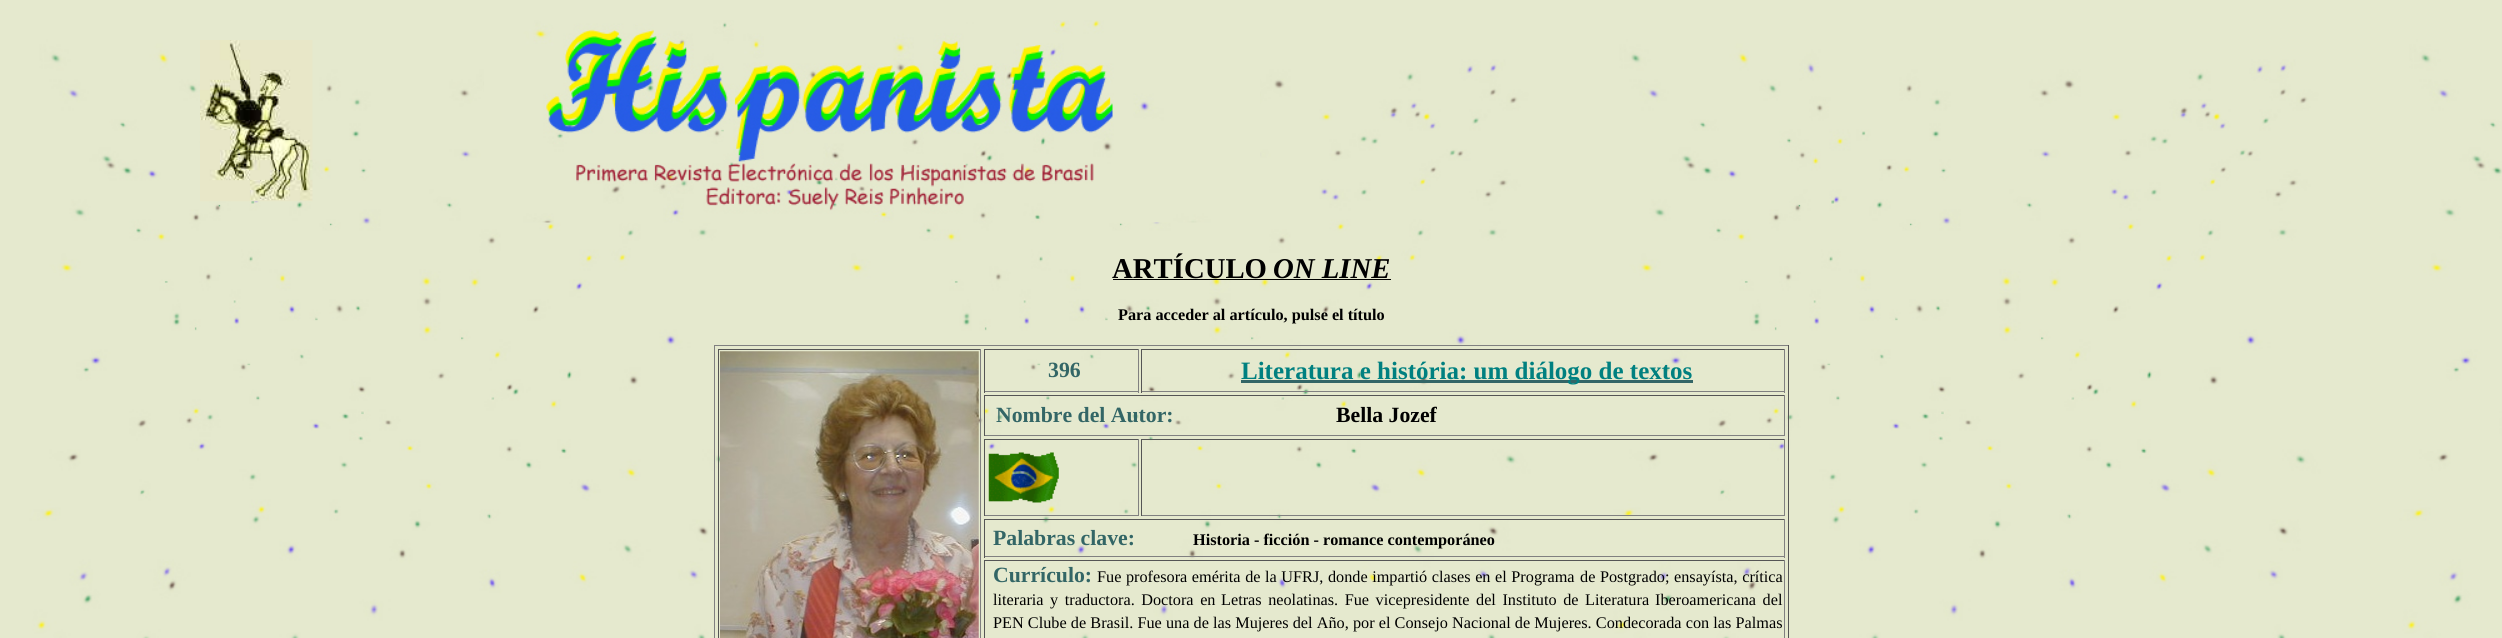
#include <cairo.h>
#include <math.h>
#include <stddef.h>

typedef struct { const char *family; double size; int italic, bold; unsigned color; } style_t;
static cairo_t *ctx;

static void ink(unsigned color) {
    cairo_set_source_rgb(ctx, (color >> 16) / 255.0, (color >> 8 & 255) / 255.0, (color & 255) / 255.0);
}

static void write(double x, double y, const char *s, const style_t *st) {
    cairo_select_font_face(ctx, st->family, st->italic ? CAIRO_FONT_SLANT_ITALIC : CAIRO_FONT_SLANT_NORMAL,
        st->bold ? CAIRO_FONT_WEIGHT_BOLD : CAIRO_FONT_WEIGHT_NORMAL);
    cairo_set_font_size(ctx, st->size);
    ink(st->color);
    cairo_move_to(ctx, x, y);
    cairo_show_text(ctx, s);
}

static void write_spaced(double x, double y, const char *s, double letter, double word) {
    cairo_move_to(ctx, x, y);
    while (*s) {
        char ch[5] = {0};
        int n = 0;
        do ch[n++] = *s++; while ((*s & 0xC0) == 0x80);
        cairo_show_text(ctx, ch);
        cairo_rel_move_to(ctx, letter + word * (*ch == ' '), 0);
    }
}

static void block(double x, double y, double w, double h, unsigned color) {
    ink(color);
    cairo_rectangle(ctx, x, y, w, h);
    cairo_fill(ctx);
}

static void paste(const char *path, double x, double y, double w, double h) {
    cairo_surface_t *image = cairo_image_surface_create_from_png(path);
    cairo_save(ctx);
    cairo_set_source_surface(ctx, image, x, y);
    cairo_rectangle(ctx, x, y, w, h);
    cairo_fill(ctx);
    cairo_restore(ctx);
    cairo_surface_destroy(image);
}

static const style_t s1 = {"Liberation Serif", 28.75, 0, 1, 0x000000};
static const style_t s2 = {"Liberation Serif", 28.75, 1, 1, 0x000000};
static const style_t s3 = {"Liberation Serif", 16.25, 0, 1, 0x000000};
static const style_t s4 = {"Liberation Serif", 21.75, 0, 1, 0x336666};
static const style_t s5 = {"Liberation Serif", 25, 0, 1, 0x008080};
static const style_t s6 = {"Liberation Serif", 21.75, 0, 1, 0x000000};

int main(void) {
    cairo_surface_t *surface = cairo_image_surface_create(CAIRO_FORMAT_RGB24, 2502, 638);
    ctx = cairo_create(surface);
    cairo_font_options_t *options = cairo_font_options_create();
    cairo_font_options_set_hint_metrics(options, CAIRO_HINT_METRICS_OFF);
    cairo_font_options_set_hint_style(options, CAIRO_HINT_STYLE_NONE);
    cairo_set_font_options(ctx, options);
    cairo_set_miter_limit(ctx, 4);
    ink(0xffffff);
    cairo_paint(ctx);
    paste("pic1.png", 0, 0, 2502, 638);
    paste("pic2.png", 200, 40, 113, 162);
    paste("pic3.png", 484, 20, 776, 203);
    write(1112, 278, "ARTÍCULO", &s1);
    write(1273, 278, "ON LINE", &s2);
    block(1113, 279, 278, 1, 0x000000);
    write(1118, 320, "Para acceder al artículo, pulse el título", &s3);
    block(714, 345, 1075, 1, 0x808080);
    block(1788, 345, 1, 293, 0x555555);
    block(714, 345, 1, 293, 0x808080);
    block(718, 349, 263, 1, 0x555555);
    block(980, 349, 1, 289, 0x808080);
    block(718, 349, 1, 289, 0x555555);
    paste("pic4.png", 720, 351, 259, 287);
    block(984, 349, 155, 1, 0x555555);
    block(1138, 349, 1, 44, 0x808080);
    block(984, 391, 155, 1, 0x808080);
    block(984, 349, 1, 44, 0x555555);
    write(1048, 377, "396", &s4);
    block(1141, 349, 644, 1, 0x555555);
    block(1784, 349, 1, 44, 0x808080);
    block(1141, 391, 644, 1, 0x808080);
    block(1141, 349, 1, 44, 0x555555);
    block(1241, 380, 452, 3, 0x336666);
    write(1241, 379, "Literatura e história: um diálogo de textos", &s5);
    block(984, 395, 801, 1, 0x555555);
    block(1784, 395, 1, 41, 0x808080);
    block(984, 435, 801, 1, 0x808080);
    block(984, 395, 1, 41, 0x555555);
    write(996, 422, "Nombre del Autor:", &s4);
    write(1336, 422, "Bella Jozef", &s6);
    block(984, 439, 155, 1, 0x555555);
    block(1138, 439, 1, 77, 0x808080);
    block(984, 515, 155, 1, 0x808080);
    block(984, 439, 1, 77, 0x555555);
    paste("pic5.png", 988, 452, 71, 51);
    block(1141, 439, 644, 1, 0x555555);
    block(1784, 439, 1, 77, 0x808080);
    block(1141, 515, 644, 1, 0x808080);
    block(1141, 439, 1, 77, 0x555555);
    block(984, 519, 801, 1, 0x555555);
    block(1784, 519, 1, 39, 0x808080);
    block(984, 556, 801, 1, 0x808080);
    block(984, 519, 1, 39, 0x555555);
    write(993, 545, "Palabras clave:", &s4);
    write(1193, 545, "Historia - ficción - romance contemporáneo", &s3);
    block(984, 560, 801, 1, 0x555555);
    block(1784, 560, 1, 78, 0x808080);
    block(984, 560, 1, 78, 0x555555);
    write(993, 582, "Currículo:", &s4);
    cairo_select_font_face(ctx, "Liberation Serif", CAIRO_FONT_SLANT_NORMAL, CAIRO_FONT_WEIGHT_NORMAL);
    cairo_set_font_size(ctx, 16.25);
    ink(0x000000);
    write_spaced(1097, 582, "Fue profesora emérita de la UFRJ, donde impartió clases en el Programa", 0, 0.5);
    write_spaced(1580, 582, "de Postgrado; ensayísta, crítica", 0, 0.5);
    write_spaced(993, 605, "literaria y traductora. Doctora en", 0, 2.5);
    write_spaced(1221, 605, "Letras neolatinas. Fue vicepresidente del Instituto de Literatura", 0, 2.5);
    write_spaced(1655, 605, "Iberoamericana del", 0, 2.5);
    write_spaced(993, 628, "PEN Clube de Brasil. Fue una de las Mujeres del Año, por el Consejo Nacional de Mujeres. Condecorada con las Palmas", 0, 0.1);
    cairo_surface_write_to_png(surface, "screenshot.png");
    cairo_font_options_destroy(options);
    cairo_destroy(ctx);
    cairo_surface_destroy(surface);
    return 0;
}
